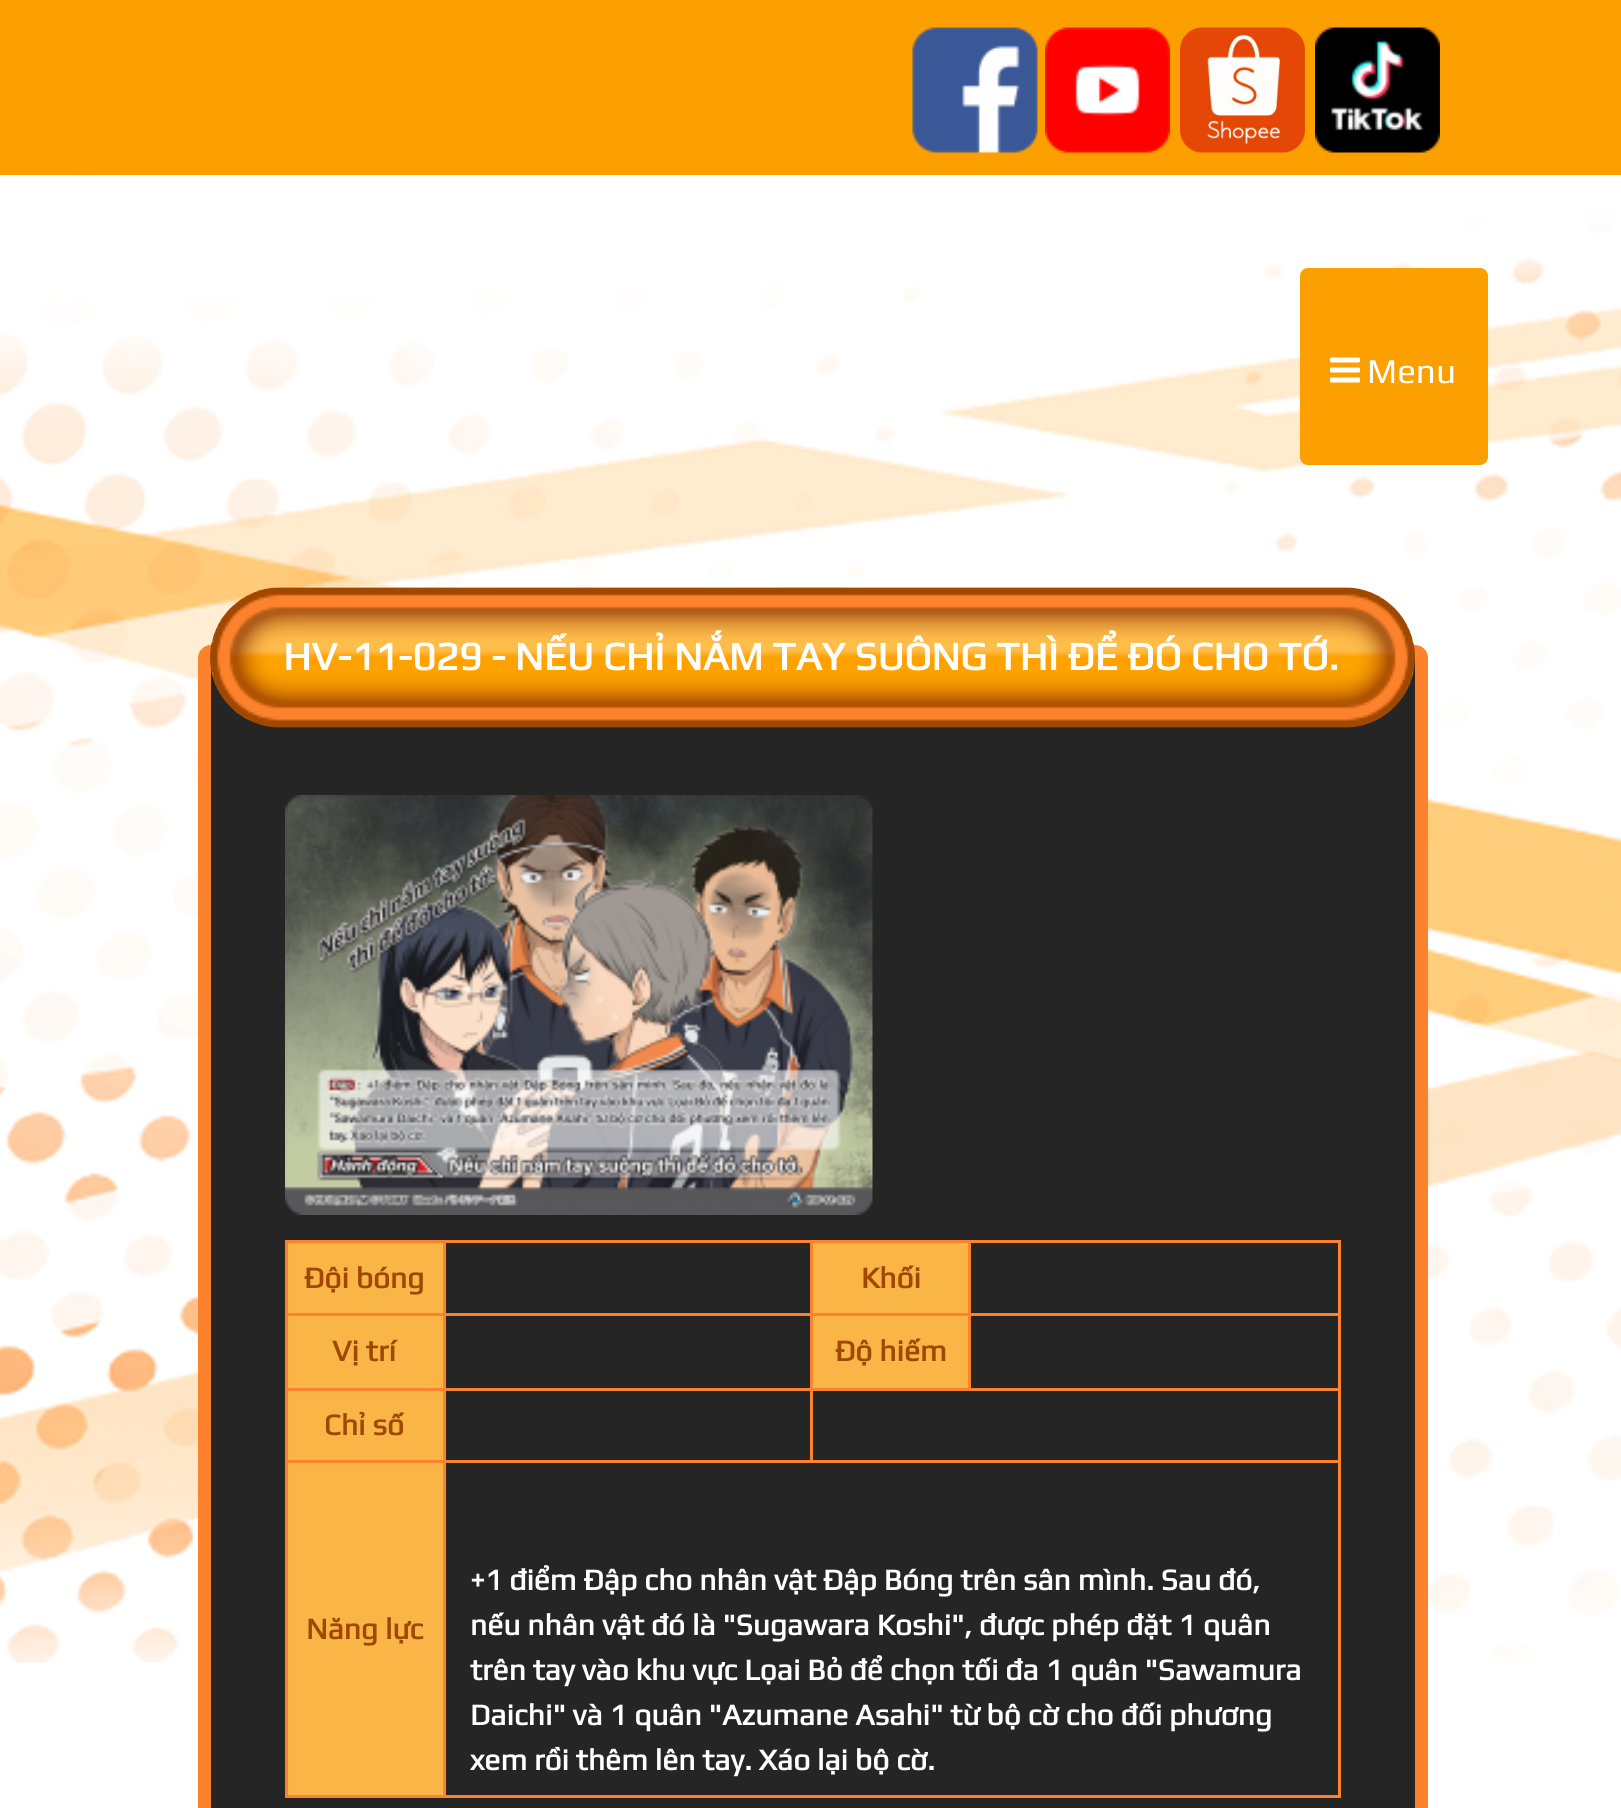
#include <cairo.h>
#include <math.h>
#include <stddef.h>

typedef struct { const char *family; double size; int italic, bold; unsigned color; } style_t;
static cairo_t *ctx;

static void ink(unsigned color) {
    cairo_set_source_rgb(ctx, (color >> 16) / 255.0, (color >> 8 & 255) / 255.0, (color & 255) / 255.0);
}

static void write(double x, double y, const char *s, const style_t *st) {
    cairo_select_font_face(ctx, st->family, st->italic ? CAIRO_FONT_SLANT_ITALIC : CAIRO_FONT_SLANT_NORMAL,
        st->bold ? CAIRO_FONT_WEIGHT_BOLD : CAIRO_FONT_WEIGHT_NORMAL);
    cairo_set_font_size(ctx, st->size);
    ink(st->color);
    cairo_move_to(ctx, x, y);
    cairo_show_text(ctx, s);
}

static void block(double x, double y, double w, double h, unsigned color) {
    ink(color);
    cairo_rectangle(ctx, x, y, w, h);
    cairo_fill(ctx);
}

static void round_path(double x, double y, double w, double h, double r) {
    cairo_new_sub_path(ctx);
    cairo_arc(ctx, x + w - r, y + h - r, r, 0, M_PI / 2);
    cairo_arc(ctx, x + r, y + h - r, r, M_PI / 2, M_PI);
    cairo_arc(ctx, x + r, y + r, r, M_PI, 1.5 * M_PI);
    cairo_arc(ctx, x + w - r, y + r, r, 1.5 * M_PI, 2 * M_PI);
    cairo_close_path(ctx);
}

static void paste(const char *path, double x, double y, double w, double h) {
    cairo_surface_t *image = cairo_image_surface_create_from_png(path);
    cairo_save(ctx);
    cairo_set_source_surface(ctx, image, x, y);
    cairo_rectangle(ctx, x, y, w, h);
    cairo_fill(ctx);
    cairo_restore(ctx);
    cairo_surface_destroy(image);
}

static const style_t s1 = {"Play", 35, 0, 0, 0xffffff};
static const style_t s2 = {"Play", 40, 0, 1, 0xffffff};
static const style_t s3 = {"Play", 30, 0, 1, 0xa04800};
static const style_t s4 = {"Play", 30, 0, 1, 0xffffff};

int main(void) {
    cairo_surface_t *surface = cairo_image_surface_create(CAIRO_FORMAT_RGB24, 1621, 1808);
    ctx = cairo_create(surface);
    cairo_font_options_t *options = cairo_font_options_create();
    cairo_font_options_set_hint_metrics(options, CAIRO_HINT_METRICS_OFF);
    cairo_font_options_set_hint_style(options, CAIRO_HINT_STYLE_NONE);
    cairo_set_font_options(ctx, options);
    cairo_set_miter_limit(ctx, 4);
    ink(0xffffff);
    cairo_paint(ctx);
    paste("pic1.png", 0, 175, 1621, 1488);
    block(0, 0, 1621, 175, 0xfc9f00);
    paste("pic2.png", 912, 27, 126, 126);
    paste("pic3.png", 1045, 27, 125, 126);
    paste("pic4.png", 1180, 27, 125, 126);
    paste("pic5.png", 1315, 27, 125, 126);
    round_path(1300, 268, 188, 197, 8);
    cairo_fill(ctx);
    paste("pic6.png", 1330, 357, 30, 26);
    write(1367, 383, "Menu", &s1);
    ink(0x252525);
    round_path(204.5, 651.5, 1217, 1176, 6.5);
    cairo_fill_preserve(ctx);
    ink(0xfc822d);
    cairo_set_line_width(ctx, 13);
    cairo_stroke(ctx);
    paste("pic7.png", 210, 587, 1205, 141);
    write(283, 670, "HV-11-029 - NẾU CHỈ NẮM TAY SUÔNG THÌ ĐỂ ĐÓ CHO TỚ.", &s2);
    paste("pic8.png", 285, 795, 588, 420);
    block(288, 1243, 155, 70, 0xf9b647);
    block(968, 1240, 372, 3, 0xfc822d);
    block(968, 1313, 372, 3, 0xfc822d);
    block(810, 1388, 530, 3, 0xfc822d);
    block(968, 1313, 3, 77, 0xfc822d);
    block(810, 1313, 160, 3, 0xfc822d);
    block(968, 1240, 3, 75, 0xfc822d);
    block(810, 1240, 160, 3, 0xfc822d);
    block(443, 1460, 897, 3, 0xfc822d);
    block(810, 1388, 3, 75, 0xfc822d);
    block(443, 1388, 370, 3, 0xfc822d);
    block(810, 1313, 3, 77, 0xfc822d);
    block(443, 1313, 370, 3, 0xfc822d);
    block(810, 1240, 3, 75, 0xfc822d);
    block(443, 1240, 370, 3, 0xfc822d);
    block(1338, 1460, 3, 338, 0xfc822d);
    block(443, 1795, 897, 3, 0xfc822d);
    block(443, 1460, 3, 338, 0xfc822d);
    block(285, 1460, 160, 3, 0xfc822d);
    block(443, 1388, 3, 75, 0xfc822d);
    block(285, 1388, 160, 3, 0xfc822d);
    block(443, 1313, 3, 77, 0xfc822d);
    block(285, 1313, 160, 3, 0xfc822d);
    block(443, 1240, 3, 75, 0xfc822d);
    block(285, 1240, 160, 3, 0xfc822d);
    block(285, 1795, 160, 3, 0xfc822d);
    block(285, 1460, 3, 338, 0xfc822d);
    block(285, 1388, 3, 75, 0xfc822d);
    block(285, 1313, 3, 77, 0xfc822d);
    block(285, 1240, 3, 75, 0xfc822d);
    write(304, 1288, "Đội bóng", &s3);
    block(813, 1243, 155, 70, 0xf9b647);
    write(861, 1288, "Khối", &s3);
    block(1338, 1388, 3, 75, 0xfc822d);
    block(1338, 1313, 3, 77, 0xfc822d);
    block(1338, 1240, 3, 75, 0xfc822d);
    block(288, 1316, 155, 72, 0xf9b647);
    write(332, 1361, "Vị trí", &s3);
    block(813, 1316, 155, 72, 0xf9b647);
    write(835, 1361, "Độ hiếm", &s3);
    block(288, 1391, 155, 69, 0xf9b647);
    write(324, 1435, "Chỉ số", &s3);
    block(288, 1463, 155, 332, 0xf9b647);
    write(306, 1639, "Năng lực", &s3);
    write(470, 1590, "+1 điểm Đập cho nhân vật Đập Bóng trên sân mình. Sau đó,", &s4);
    write(470, 1635, "nếu nhân vật đó là \"Sugawara Koshi\", được phép đặt 1 quân", &s4);
    write(470, 1680, "trên tay vào khu vực Lọai Bỏ để chọn tối đa 1 quân \"Sawamura", &s4);
    write(470, 1725, "Daichi\" và 1 quân \"Azumane Asahi\" từ bộ cờ cho đối phương", &s4);
    write(470, 1770, "xem rồi thêm lên tay. Xáo lại bộ cờ.", &s4);
    cairo_surface_write_to_png(surface, "screenshot.png");
    cairo_font_options_destroy(options);
    cairo_destroy(ctx);
    cairo_surface_destroy(surface);
    return 0;
}
